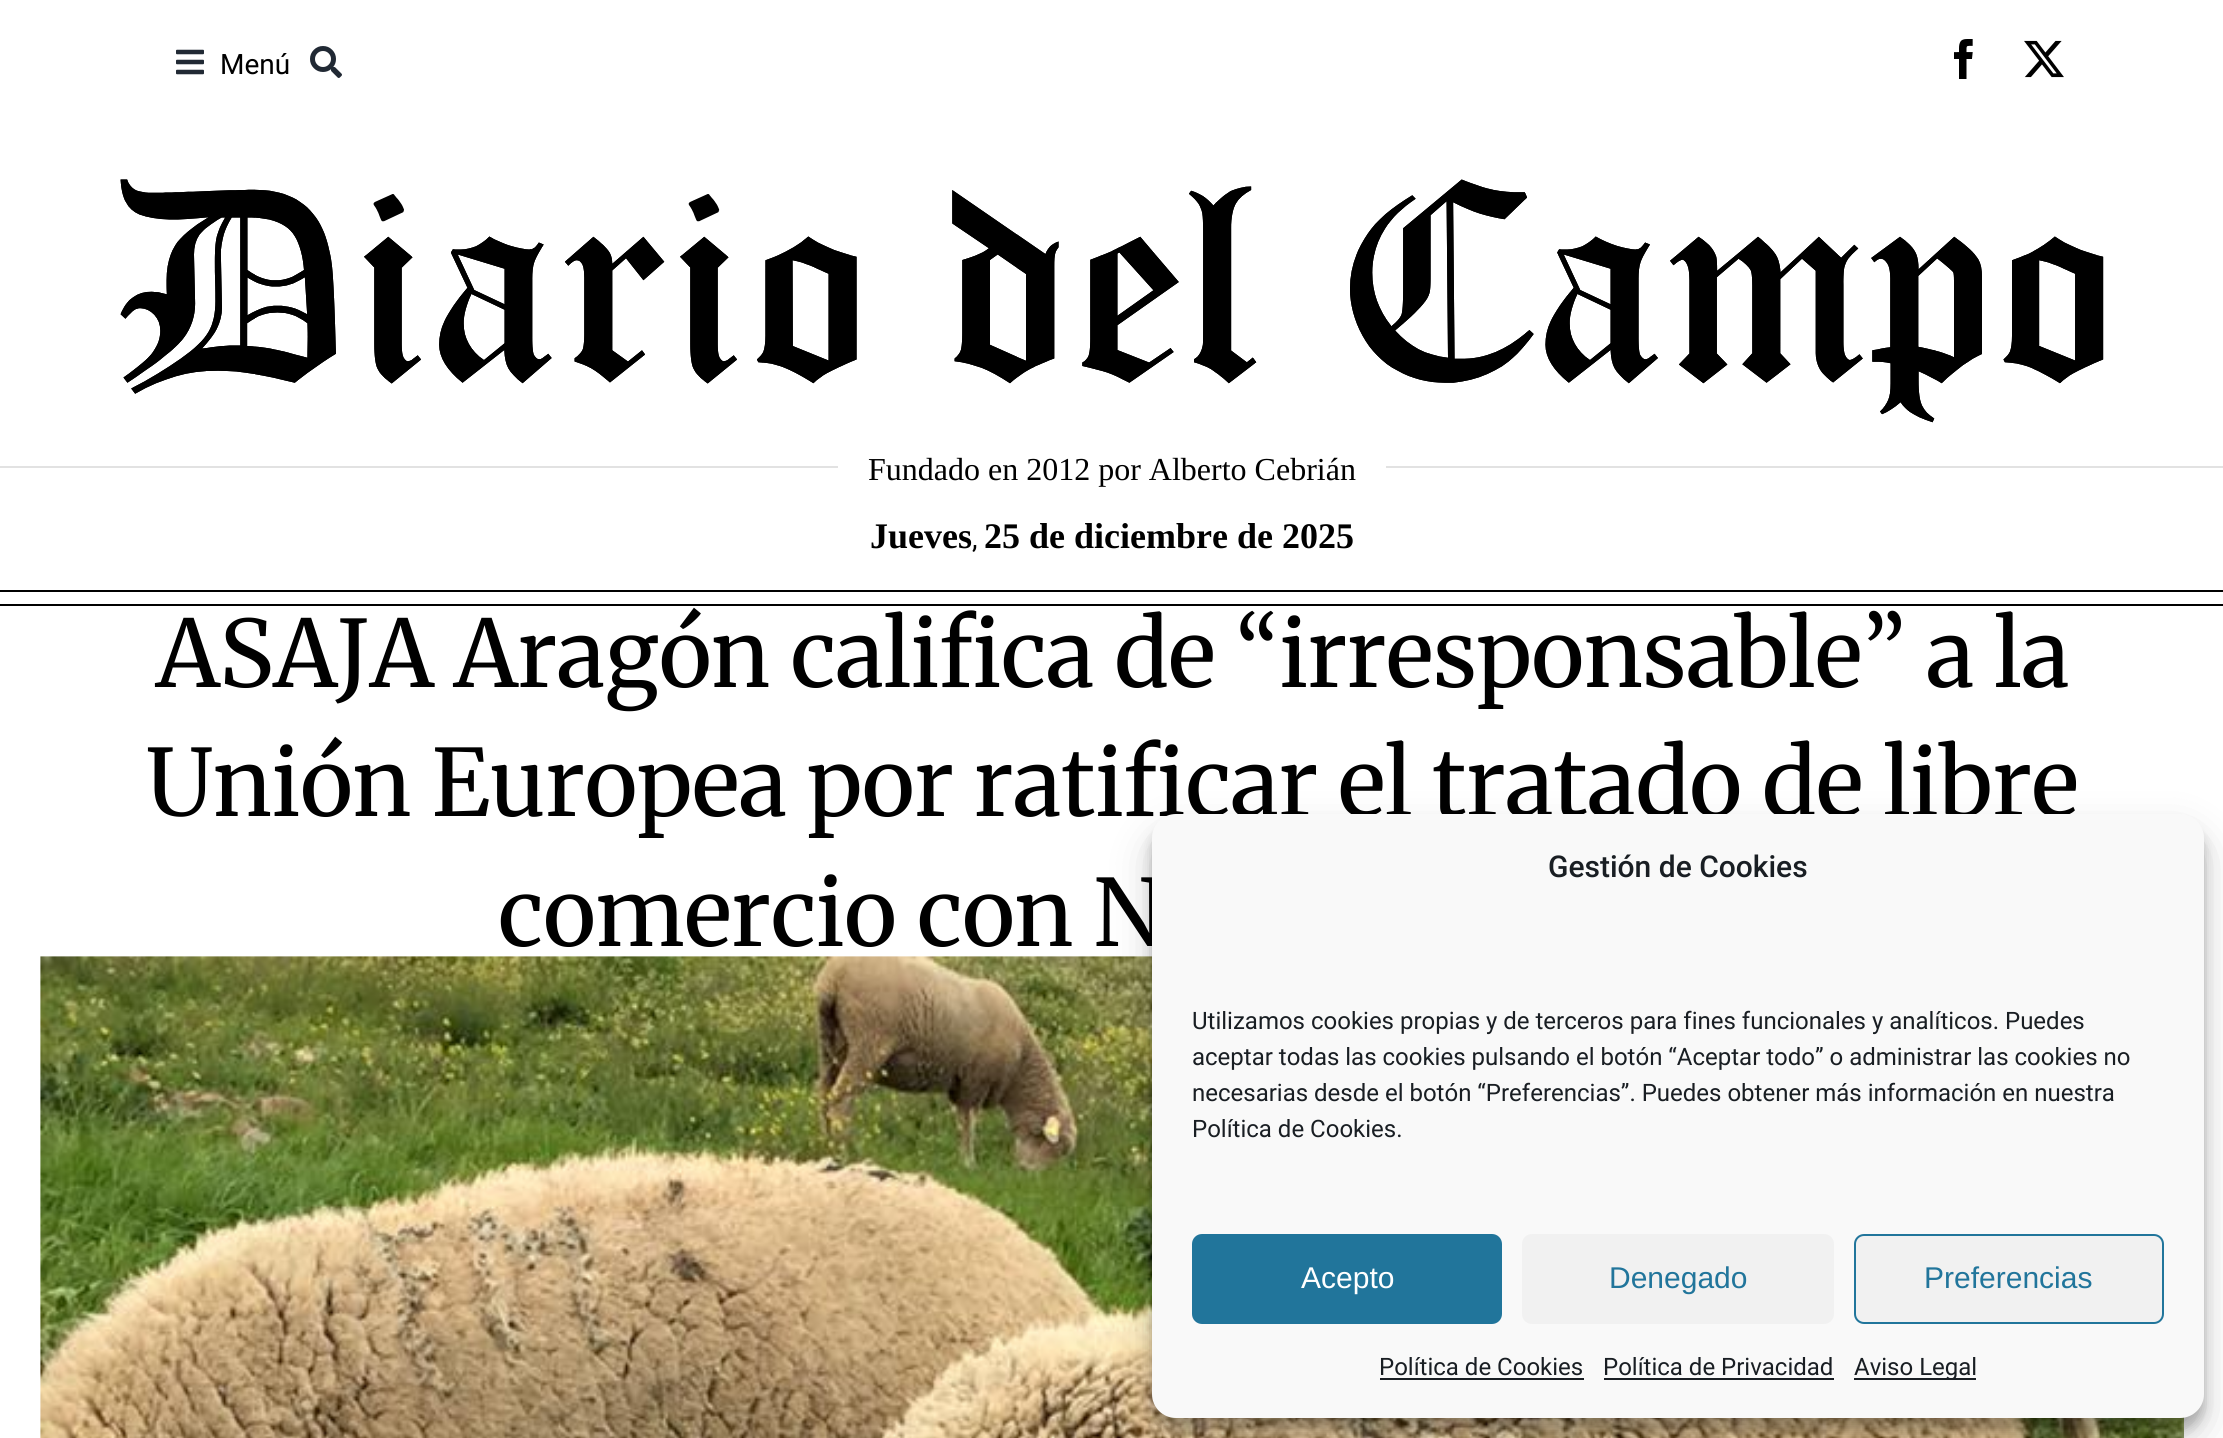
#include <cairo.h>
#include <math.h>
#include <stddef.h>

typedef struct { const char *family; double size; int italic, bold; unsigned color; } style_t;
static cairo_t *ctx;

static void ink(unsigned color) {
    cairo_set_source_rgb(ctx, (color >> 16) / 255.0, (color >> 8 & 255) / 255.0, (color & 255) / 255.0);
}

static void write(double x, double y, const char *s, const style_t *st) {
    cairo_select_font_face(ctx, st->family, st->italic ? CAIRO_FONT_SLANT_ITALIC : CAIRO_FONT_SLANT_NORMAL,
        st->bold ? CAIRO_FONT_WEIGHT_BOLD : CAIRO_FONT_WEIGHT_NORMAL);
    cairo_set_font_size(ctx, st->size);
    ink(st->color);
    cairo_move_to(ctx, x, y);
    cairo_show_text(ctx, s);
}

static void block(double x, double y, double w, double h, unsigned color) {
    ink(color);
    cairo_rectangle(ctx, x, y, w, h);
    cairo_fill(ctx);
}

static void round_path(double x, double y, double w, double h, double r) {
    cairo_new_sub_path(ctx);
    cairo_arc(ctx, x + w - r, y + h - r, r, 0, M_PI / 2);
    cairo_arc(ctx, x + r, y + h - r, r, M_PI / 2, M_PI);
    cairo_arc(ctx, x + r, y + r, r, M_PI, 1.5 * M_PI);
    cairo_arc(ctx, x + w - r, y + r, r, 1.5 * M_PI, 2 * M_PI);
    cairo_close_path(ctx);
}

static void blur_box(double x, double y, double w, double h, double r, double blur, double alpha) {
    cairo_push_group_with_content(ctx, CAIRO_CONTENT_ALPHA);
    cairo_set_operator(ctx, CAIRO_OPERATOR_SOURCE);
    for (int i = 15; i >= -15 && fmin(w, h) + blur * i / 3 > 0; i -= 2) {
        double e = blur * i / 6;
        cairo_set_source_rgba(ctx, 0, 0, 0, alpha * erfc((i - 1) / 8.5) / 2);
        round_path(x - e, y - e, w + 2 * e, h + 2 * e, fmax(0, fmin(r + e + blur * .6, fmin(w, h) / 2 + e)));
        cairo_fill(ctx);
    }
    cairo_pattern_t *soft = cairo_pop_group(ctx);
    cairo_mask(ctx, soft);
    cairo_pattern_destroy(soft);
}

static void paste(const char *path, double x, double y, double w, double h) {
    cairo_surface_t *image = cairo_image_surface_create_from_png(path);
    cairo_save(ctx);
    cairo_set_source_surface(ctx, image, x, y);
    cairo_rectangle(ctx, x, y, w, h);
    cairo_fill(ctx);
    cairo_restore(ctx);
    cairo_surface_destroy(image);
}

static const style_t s1 = {"Roboto", 28, 0, 0, 0x000000};
static const style_t s2 = {"Liberation Serif", 32, 0, 0, 0x000000};
static const style_t s3 = {"Liberation Serif", 36, 0, 1, 0x000000};
static const style_t s4 = {"Merriweather", 92.4, 0, 0, 0x000000};
static const style_t s5 = {"Roboto Medium", 30, 0, 0, 0x191e23};
static const style_t s6 = {"Roboto", 24, 0, 0, 0x191e23};
static const style_t s7 = {"Liberation Sans", 30, 0, 0, 0xffffff};
static const style_t s8 = {"Liberation Sans", 30, 0, 0, 0x21759b};

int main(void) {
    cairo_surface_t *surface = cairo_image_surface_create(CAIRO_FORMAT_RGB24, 2223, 1438);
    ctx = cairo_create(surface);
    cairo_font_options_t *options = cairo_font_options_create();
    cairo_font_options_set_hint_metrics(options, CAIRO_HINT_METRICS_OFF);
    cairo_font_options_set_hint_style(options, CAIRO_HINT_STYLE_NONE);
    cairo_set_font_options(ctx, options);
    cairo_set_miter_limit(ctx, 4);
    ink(0xffffff);
    cairo_paint(ctx);
    paste("pic1.png", 176, 49, 28, 26);
    write(220, 74, "Menú", &s1);
    paste("pic2.png", 310, 46, 32, 32);
    paste("pic3.png", 1954, 39, 19, 40);
    paste("pic4.png", 2024, 40, 40, 38);
    paste("pic5.png", 120, 179, 1984, 244);
    block(0, 466, 838, 2, 0xe2e2e2);
    write(868, 480, "Fundado en 2012 por Alberto Cebrián", &s2);
    block(1386, 466, 837, 2, 0xe2e2e2);
    write(870, 548, "Jueves", &s3);
    write(972, 548, ",", &s1);
    write(984, 548, "25 de diciembre de 2025", &s3);
    block(0, 590, 2223, 2, 0x000000);
    block(0, 604, 2223, 2, 0x000000);
    write(156, 687, "ASAJA Aragón califica de “irresponsable” a la", &s4);
    write(146, 816, "Unión Europea por ratificar el tratado de libre", &s4);
    write(498, 946, "comercio con N", &s4);
    paste("pic6.png", 40, 956, 2144, 482);
    ink(0x000000);
    blur_box(1152, 826, 1052, 604, 24, 6, 0.23);
    blur_box(1152, 834, 1052, 604, 24, 20, 0.19);
    ink(0xf9f9f9);
    round_path(1152, 814, 1052, 604, 24);
    cairo_fill(ctx);
    write(1548, 877, "Gestión de Cookies", &s5);
    write(1192, 1029, "Utilizamos cookies propias y de terceros para fines funcionales y analíticos. Puedes", &s6);
    write(1192, 1065, "aceptar todas las cookies pulsando el botón “Aceptar todo” o administrar las cookies no", &s6);
    write(1192, 1101, "necesarias desde el botón “Preferencias”. Puedes obtener más información en nuestra", &s6);
    write(1192, 1137, "Política de Cookies.", &s6);
    ink(0x21759b);
    round_path(1193, 1235, 308, 88, 9);
    cairo_fill_preserve(ctx);
    cairo_stroke(ctx);
    write(1301, 1288, "Acepto", &s7);
    ink(0xf1f1f1);
    round_path(1522, 1234, 312, 90, 10);
    cairo_fill(ctx);
    write(1609, 1288, "Denegado", &s8);
    ink(0xf1f1f1);
    round_path(1855, 1235, 308, 88, 9);
    cairo_fill_preserve(ctx);
    ink(0x21759b);
    cairo_stroke(ctx);
    write(1924, 1288, "Preferencias", &s8);
    write(1379, 1375, "Política de Cookies", &s6);
    block(1380, 1378, 204, 2, 0x191e23);
    write(1603, 1375, "Política de Privacidad", &s6);
    block(1604, 1378, 230, 2, 0x191e23);
    block(1854, 1378, 122, 2, 0x191e23);
    write(1854, 1375, "Aviso Legal", &s6);
    cairo_surface_write_to_png(surface, "screenshot.png");
    cairo_font_options_destroy(options);
    cairo_destroy(ctx);
    cairo_surface_destroy(surface);
    return 0;
}
